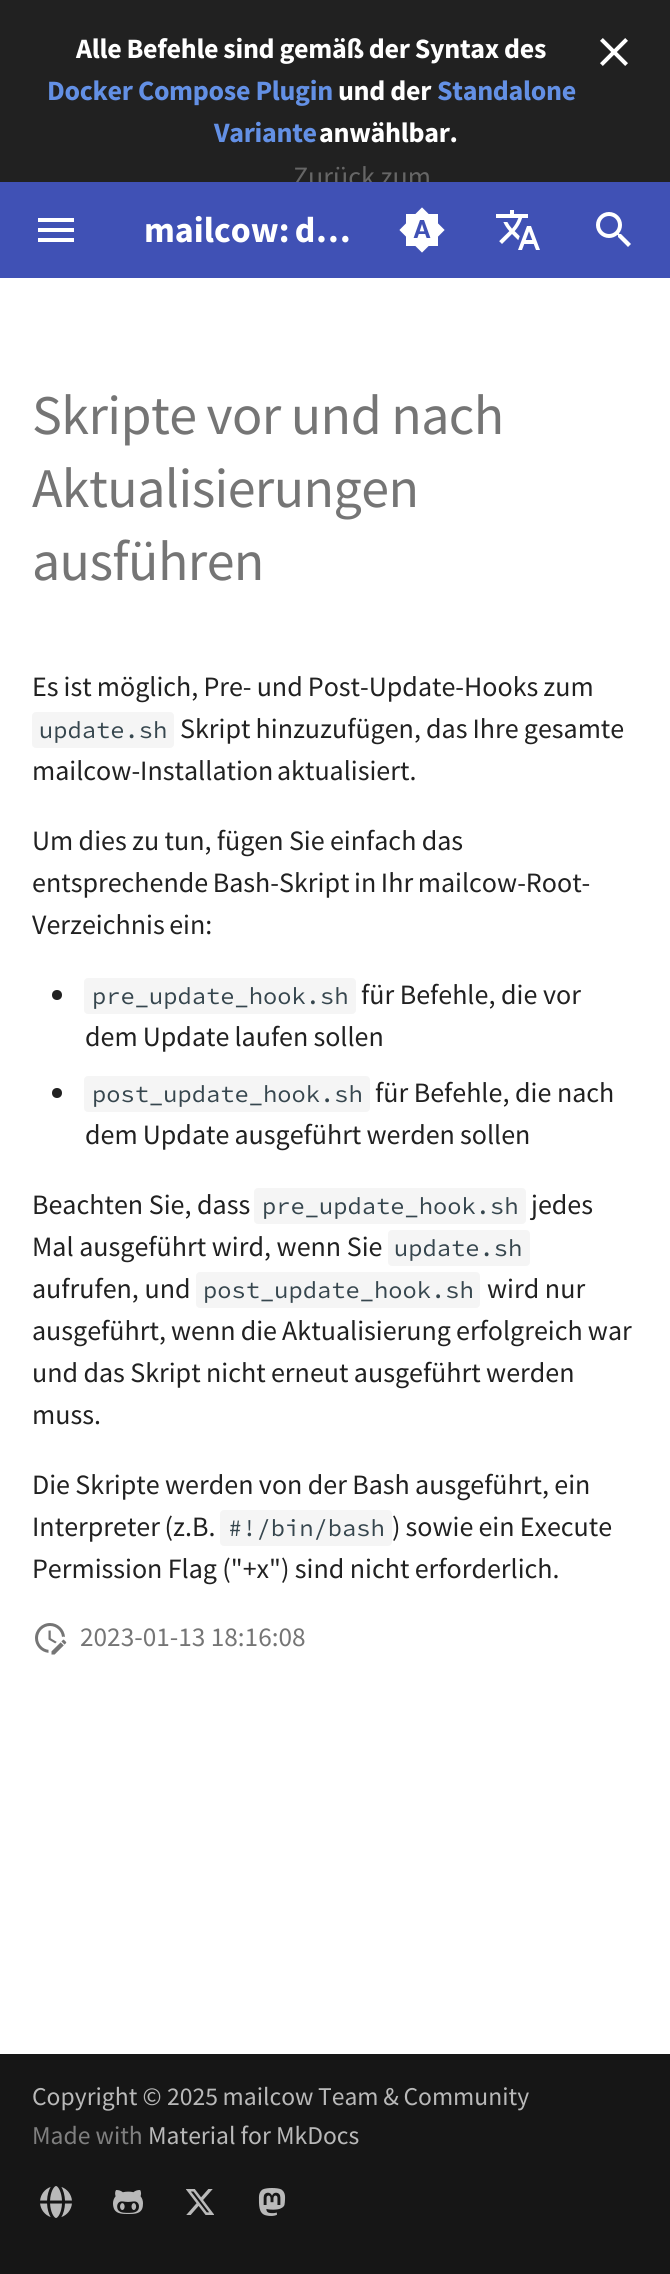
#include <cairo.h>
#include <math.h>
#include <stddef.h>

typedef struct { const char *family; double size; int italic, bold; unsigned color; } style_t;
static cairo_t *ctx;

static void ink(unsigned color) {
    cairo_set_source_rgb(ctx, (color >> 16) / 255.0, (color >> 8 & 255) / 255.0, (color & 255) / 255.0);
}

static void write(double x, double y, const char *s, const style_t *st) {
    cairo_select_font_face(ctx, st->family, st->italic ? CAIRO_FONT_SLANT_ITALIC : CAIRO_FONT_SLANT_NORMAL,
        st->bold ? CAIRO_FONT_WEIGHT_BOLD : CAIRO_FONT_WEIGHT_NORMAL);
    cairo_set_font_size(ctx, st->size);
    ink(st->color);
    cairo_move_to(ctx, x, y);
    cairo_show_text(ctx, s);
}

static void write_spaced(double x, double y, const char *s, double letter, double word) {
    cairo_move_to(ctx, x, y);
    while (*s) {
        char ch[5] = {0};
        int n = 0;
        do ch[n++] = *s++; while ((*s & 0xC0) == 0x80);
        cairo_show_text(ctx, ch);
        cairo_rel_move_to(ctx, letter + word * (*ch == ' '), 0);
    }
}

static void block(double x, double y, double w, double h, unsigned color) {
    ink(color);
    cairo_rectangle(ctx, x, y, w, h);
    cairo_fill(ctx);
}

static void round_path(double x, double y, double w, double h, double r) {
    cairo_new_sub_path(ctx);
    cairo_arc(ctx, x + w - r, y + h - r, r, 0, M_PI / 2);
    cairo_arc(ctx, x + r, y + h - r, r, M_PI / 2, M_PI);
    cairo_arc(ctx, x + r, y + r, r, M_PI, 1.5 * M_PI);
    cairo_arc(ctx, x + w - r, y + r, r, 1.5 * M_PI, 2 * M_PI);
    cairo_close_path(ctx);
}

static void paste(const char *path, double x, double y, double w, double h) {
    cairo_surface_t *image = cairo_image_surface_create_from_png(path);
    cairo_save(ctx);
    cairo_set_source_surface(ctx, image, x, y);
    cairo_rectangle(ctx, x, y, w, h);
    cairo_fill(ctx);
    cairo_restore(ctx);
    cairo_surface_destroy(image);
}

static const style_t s1 = {"Source Sans Pro", 28, 0, 0, 0x666666};
static const style_t s2 = {"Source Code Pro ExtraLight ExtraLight", 23.75, 0, 0, 0x36464e};
static const style_t s3 = {"Source Sans Pro", 28, 0, 0, 0x212121};
static const style_t s4 = {"Source Sans Pro", 27.25, 0, 0, 0x757575};
static const style_t s5 = {"Source Sans Pro", 25.6, 0, 0, 0xb9b9b9};
static const style_t s6 = {"Source Sans Pro", 25.6, 0, 0, 0x7f7f7f};

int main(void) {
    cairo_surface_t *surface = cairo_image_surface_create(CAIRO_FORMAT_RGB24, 670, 2274);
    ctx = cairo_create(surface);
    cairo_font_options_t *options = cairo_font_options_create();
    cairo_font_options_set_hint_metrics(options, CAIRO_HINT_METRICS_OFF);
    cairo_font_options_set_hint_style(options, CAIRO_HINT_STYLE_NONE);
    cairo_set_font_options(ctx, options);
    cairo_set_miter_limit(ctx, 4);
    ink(0xffffff);
    cairo_paint(ctx);
    block(0, 0, 670, 182, 0x212121);
    cairo_select_font_face(ctx, "Source Sans Pro", CAIRO_FONT_SLANT_NORMAL, CAIRO_FONT_WEIGHT_BOLD);
    cairo_set_font_size(ctx, 28);
    ink(0xffffff);
    write_spaced(76, 58, "Alle Befehle sind gemäß der Syntax des", -0.3, -0.25);
    ink(0x6390e5);
    write_spaced(47, 100, "Docker Compose Plugin", -0.3, 0);
    ink(0xffffff);
    write_spaced(338, 100, "und der", -0.3, 0);
    ink(0x6390e5);
    write_spaced(437, 100, "Standalone", -0.3, 0);
    write_spaced(214, 142, "Variante", -0.3, 0);
    ink(0xffffff);
    write_spaced(319, 142, "anwählbar.", -0.3, 0);
    paste("pic1.png", 600, 38, 28, 28);
    write(293, 186, "Zurück zum", &s1);
    cairo_set_font_size(ctx, 56);
    ink(0x757575);
    write_spaced(32, 434, "Skripte vor und nach", -0.6, -0.5);
    write_spaced(32, 507, "Aktualisierungen", -0.6, 0);
    write_spaced(32, 580, "ausführen", -0.6, 0);
    cairo_set_font_size(ctx, 28);
    ink(0x212121);
    write_spaced(32, 696, "Es ist möglich, Pre- und Post-Update-Hooks zum", 0, -0.5);
    ink(0xf5f5f5);
    round_path(32, 712, 142, 36, 4);
    cairo_fill(ctx);
    write(39, 738, "update.sh", &s2);
    cairo_select_font_face(ctx, "Source Sans Pro", CAIRO_FONT_SLANT_NORMAL, CAIRO_FONT_WEIGHT_NORMAL);
    cairo_set_font_size(ctx, 28);
    ink(0x212121);
    write_spaced(180, 738, "Skript hinzuzufügen, das Ihre gesamte", 0, -0.5);
    write_spaced(32, 780, "mailcow-Installation aktualisiert.", 0, -2);
    write_spaced(32, 850, "Um dies zu tun, fügen Sie einfach das", 0, -0.25);
    write_spaced(32, 892, "entsprechende Bash-Skript in Ihr mailcow-Root-", 0, -1);
    write_spaced(32, 934, "Verzeichnis ein:", 0, -1);
    cairo_new_path(ctx);
    cairo_arc(ctx, 57, 995, 5, 0, 2 * M_PI);
    cairo_fill(ctx);
    ink(0xf5f5f5);
    round_path(84, 978, 272, 36, 4);
    cairo_fill(ctx);
    write(92, 1004, "pre_update_hook.sh", &s2);
    write(361, 1004, "für Befehle, die vor", &s3);
    write_spaced(85, 1046, "dem Update laufen sollen", 0, -0.5);
    cairo_new_path(ctx);
    cairo_arc(ctx, 57, 1093, 5, 0, 2 * M_PI);
    cairo_fill(ctx);
    ink(0xf5f5f5);
    round_path(84, 1076, 286, 36, 4);
    cairo_fill(ctx);
    write(92, 1102, "post_update_hook.sh", &s2);
    write(375, 1102, "für Befehle, die nach", &s3);
    write_spaced(85, 1144, "dem Update ausgeführt werden sollen", 0, -0.5);
    write(32, 1214, "Beachten Sie, dass", &s3);
    ink(0xf5f5f5);
    round_path(254, 1188, 272, 36, 4);
    cairo_fill(ctx);
    write(262, 1214, "pre_update_hook.sh", &s2);
    write(531, 1214, "jedes", &s3);
    write(32, 1256, "Mal ausgeführt wird, wenn Sie", &s3);
    ink(0xf5f5f5);
    round_path(388, 1230, 142, 36, 4);
    cairo_fill(ctx);
    write(394, 1256, "update.sh", &s2);
    write(32, 1298, "aufrufen, und", &s3);
    ink(0xf5f5f5);
    round_path(196, 1272, 284, 36, 4);
    cairo_fill(ctx);
    write(203, 1298, "post_update_hook.sh", &s2);
    write(487, 1298, "wird nur", &s3);
    write_spaced(32, 1340, "ausgeführt, wenn die Aktualisierung erfolgreich war", 0, -0.5);
    write_spaced(32, 1382, "und das Skript nicht erneut ausgeführt werden", 0, -0.25);
    write(32, 1424, "muss.", &s3);
    write_spaced(32, 1494, "Die Skripte werden von der Bash ausgeführt, ein", 0, -0.25);
    write_spaced(32, 1536, "Interpreter (z.B.", 0, -1);
    ink(0xf5f5f5);
    round_path(220, 1510, 172, 36, 4);
    cairo_fill(ctx);
    write(228, 1536, "#!/bin/bash", &s2);
    cairo_select_font_face(ctx, "Source Sans Pro", CAIRO_FONT_SLANT_NORMAL, CAIRO_FONT_WEIGHT_NORMAL);
    cairo_set_font_size(ctx, 28);
    ink(0x212121);
    write_spaced(392, 1536, ") sowie ein Execute", 0, -0.5);
    write_spaced(32, 1578, "Permission Flag (\"+x\") sind nicht erforderlich.", 0, -0.25);
    paste("pic2.png", 35, 1623, 32, 32);
    write(80, 1646, "2023-01-13 18:16:08", &s4);
    block(0, 2054, 670, 220, 0x161616);
    write(32, 2105, "Copyright ©", &s5);
    write_spaced(167, 2105, "2025 mailcow Team & Community", 0, -0.5);
    write(32, 2144, "Made with", &s6);
    write(148, 2144, "Material for MkDocs", &s5);
    paste("pic3.png", 40, 2186, 32, 32);
    paste("pic4.png", 113, 2190, 30, 24);
    paste("pic5.png", 186, 2189, 28, 26);
    paste("pic6.png", 258, 2188, 28, 28);
    block(0, 182, 670, 96, 0x4051b5);
    ink(0xffffff);
    cairo_new_path(ctx);
    cairo_move_to(ctx, 38, 218);
    cairo_line_to(ctx, 74, 218);
    cairo_line_to(ctx, 74, 222);
    cairo_line_to(ctx, 38, 222);
    cairo_close_path(ctx);
    cairo_move_to(ctx, 38, 228);
    cairo_line_to(ctx, 74, 228);
    cairo_line_to(ctx, 74, 232);
    cairo_line_to(ctx, 38, 232);
    cairo_close_path(ctx);
    cairo_move_to(ctx, 38, 238);
    cairo_line_to(ctx, 74, 238);
    cairo_line_to(ctx, 74, 242);
    cairo_line_to(ctx, 38, 242);
    cairo_close_path(ctx);
    cairo_fill(ctx);
    cairo_select_font_face(ctx, "Source Sans Pro", CAIRO_FONT_SLANT_NORMAL, CAIRO_FONT_WEIGHT_BOLD);
    cairo_set_font_size(ctx, 36);
    write_spaced(144, 242, "mailcow: d…", 0, -2);
    paste("pic7.png", 399, 207, 46, 46);
    paste("pic8.png", 496, 210, 44, 40);
    paste("pic9.png", 596, 212, 35, 35);
    cairo_surface_write_to_png(surface, "screenshot.png");
    cairo_font_options_destroy(options);
    cairo_destroy(ctx);
    cairo_surface_destroy(surface);
    return 0;
}
